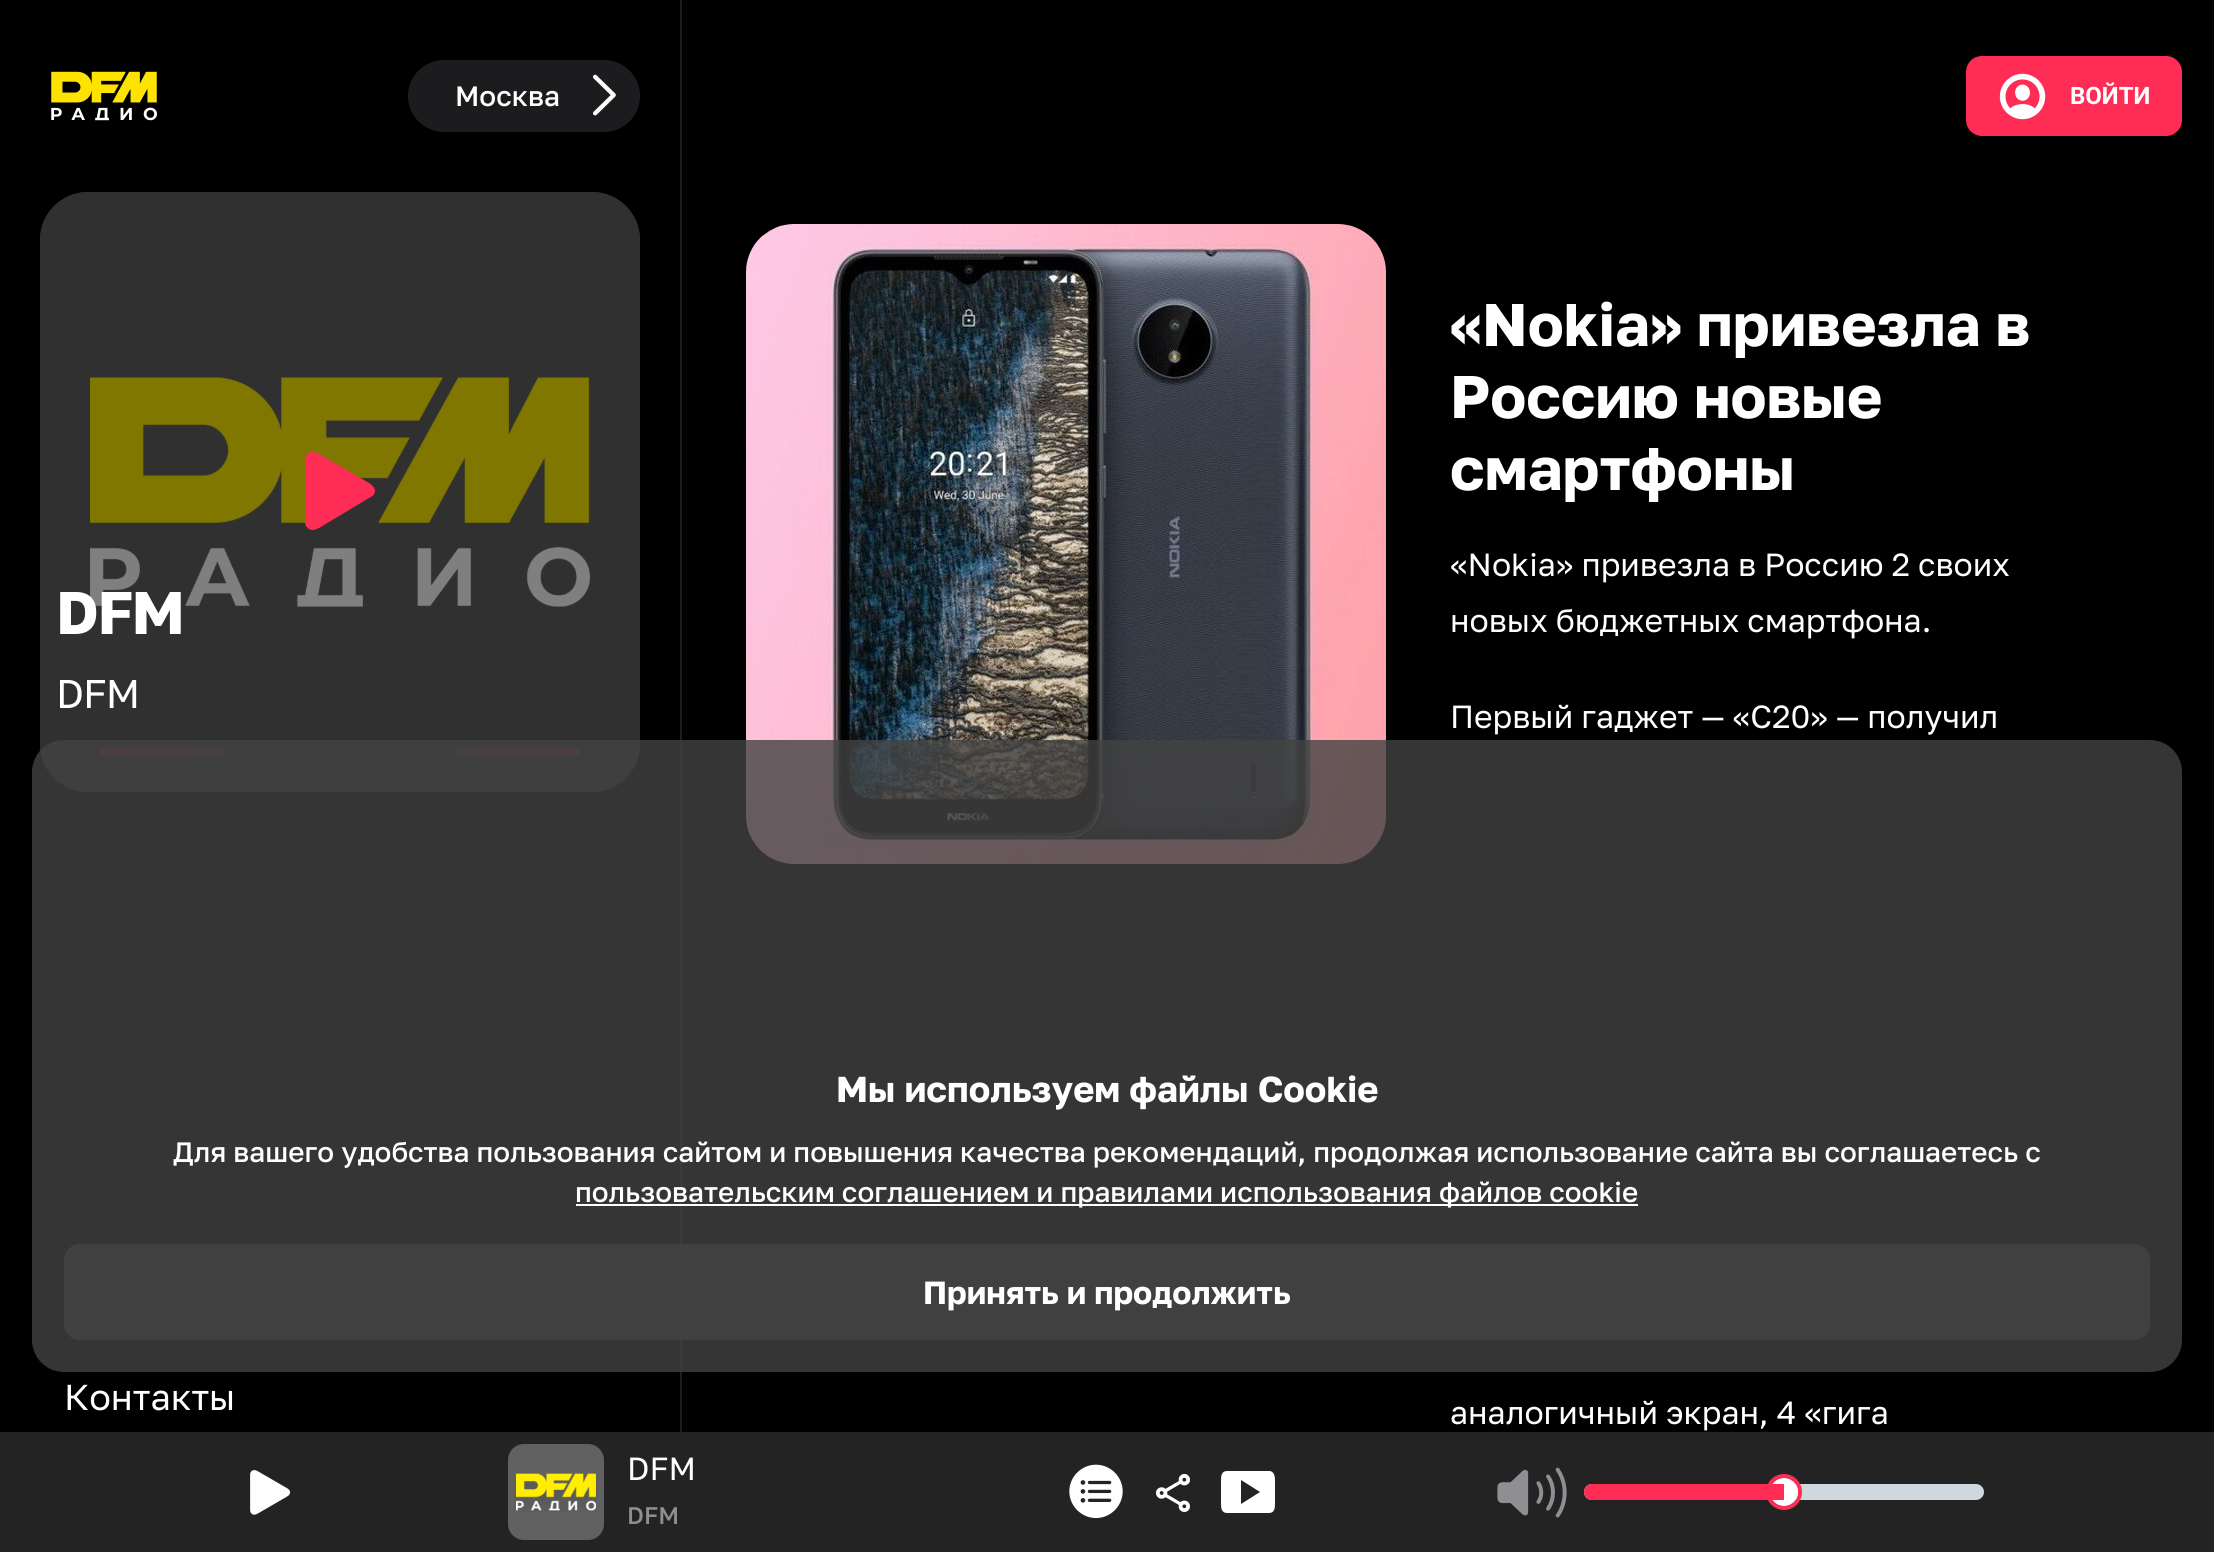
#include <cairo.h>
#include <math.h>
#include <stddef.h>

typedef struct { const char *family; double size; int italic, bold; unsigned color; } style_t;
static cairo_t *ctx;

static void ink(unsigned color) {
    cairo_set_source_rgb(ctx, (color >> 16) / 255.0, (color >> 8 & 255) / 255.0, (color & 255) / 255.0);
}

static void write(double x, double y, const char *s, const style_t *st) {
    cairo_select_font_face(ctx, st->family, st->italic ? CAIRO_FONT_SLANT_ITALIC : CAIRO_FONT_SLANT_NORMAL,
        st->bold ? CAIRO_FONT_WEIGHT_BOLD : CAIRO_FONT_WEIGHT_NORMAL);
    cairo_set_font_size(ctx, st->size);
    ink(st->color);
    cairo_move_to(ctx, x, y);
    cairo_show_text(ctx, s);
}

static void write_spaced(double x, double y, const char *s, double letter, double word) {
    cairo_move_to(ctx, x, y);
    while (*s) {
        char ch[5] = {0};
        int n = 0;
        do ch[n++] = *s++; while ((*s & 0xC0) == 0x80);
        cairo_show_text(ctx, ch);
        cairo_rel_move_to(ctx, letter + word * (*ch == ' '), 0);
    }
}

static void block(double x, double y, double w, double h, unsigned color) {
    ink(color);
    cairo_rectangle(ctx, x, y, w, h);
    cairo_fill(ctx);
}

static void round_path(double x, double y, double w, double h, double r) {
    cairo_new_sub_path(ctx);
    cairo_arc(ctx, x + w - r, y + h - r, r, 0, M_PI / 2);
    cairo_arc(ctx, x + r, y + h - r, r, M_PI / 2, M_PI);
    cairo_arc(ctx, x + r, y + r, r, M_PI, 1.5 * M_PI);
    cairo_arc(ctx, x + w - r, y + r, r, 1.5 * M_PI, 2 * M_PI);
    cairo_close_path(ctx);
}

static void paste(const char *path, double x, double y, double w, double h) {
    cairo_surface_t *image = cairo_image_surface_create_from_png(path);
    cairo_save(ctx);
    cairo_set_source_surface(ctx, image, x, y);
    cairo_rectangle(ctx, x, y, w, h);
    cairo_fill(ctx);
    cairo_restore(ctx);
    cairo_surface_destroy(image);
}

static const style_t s1 = {"Roboto", 24, 0, 1, 0xffffff};
static const style_t s2 = {"Golos Text", 60, 0, 1, 0xffffff};
static const style_t s3 = {"Golos Text", 32, 0, 0, 0xffffff};
static const style_t s4 = {"Golos Text", 36, 0, 1, 0xffffff};
static const style_t s5 = {"Golos Text Medium", 28, 0, 0, 0xffffff};
static const style_t s6 = {"Golos Text", 32, 0, 1, 0xffffff};
static const style_t s7 = {"Golos Text", 36, 0, 0, 0xffffff};
static const style_t s8 = {"Golos Text Medium", 24, 0, 0, 0x8e8e93};

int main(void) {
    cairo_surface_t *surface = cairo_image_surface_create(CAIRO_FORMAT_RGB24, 2214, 1552);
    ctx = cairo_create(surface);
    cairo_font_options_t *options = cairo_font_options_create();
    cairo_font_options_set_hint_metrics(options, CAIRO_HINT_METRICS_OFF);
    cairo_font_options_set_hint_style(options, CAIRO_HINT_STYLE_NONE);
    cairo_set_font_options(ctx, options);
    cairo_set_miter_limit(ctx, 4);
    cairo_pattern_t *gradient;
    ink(0x000000);
    cairo_paint(ctx);
    block(0, 1432, 2214, 120, 0x232323);
    ink(0xff2d55);
    round_path(1966, 56, 216, 80, 16);
    cairo_fill(ctx);
    paste("pic1.png", 1999, 73, 47, 47);
    write(2070, 104, "ВОЙТИ", &s1);
    paste("pic2.png", 746, 224, 640, 640);
    write(1450, 346, "«Nokia» привезла в", &s2);
    write(1450, 418, "Россию новые", &s2);
    write(1450, 490, "смартфоны", &s2);
    write(1450, 576, "«Nokia» привезла в Россию 2 своих", &s3);
    write(1450, 632, "новых бюджетных смартфона.", &s3);
    write(1450, 728, "Первый гаджет — «C20» — получил", &s3);
    write(1450, 1424, "аналогичный экран, 4 «гига", &s3);
    block(680, 0, 2, 1432, 0x1c1c1e);
    ink(0x616161);
    round_path(40, 192, 600, 600, 48);
    cairo_fill(ctx);
    paste("pic5.png", 90, 377, 500, 230);
    cairo_set_source_rgba(ctx, 0, 0, 0, 0.5);
    round_path(40, 192, 600, 600, 48);
    cairo_fill(ctx);
    gradient = cairo_pattern_create_linear(100, 752, 580, 752);
    cairo_pattern_add_color_stop_rgba(gradient, 0, 1, 0.231, 0.188, 0.32);
    cairo_pattern_add_color_stop_rgba(gradient, 0.47, 1, 0.231, 0.188, 0);
    cairo_pattern_add_color_stop_rgba(gradient, 0.53, 1, 0.231, 0.188, 0);
    cairo_pattern_add_color_stop_rgba(gradient, 1, 1, 0.231, 0.188, 0.32);
    cairo_set_source(ctx, gradient);
    cairo_pattern_destroy(gradient);
    round_path(100, 748, 480, 8, 4);
    cairo_fill(ctx);
    cairo_set_source_rgba(ctx, 0.259, 0.259, 0.259, 0.8);
    round_path(32, 740, 2150, 632, 32);
    cairo_fill(ctx);
    write(836, 1102, "Мы используем файлы Cookie", &s4);
    write(173, 1162, "Для вашего удобства пользования сайтом и повышения качества рекомендаций, продолжая использование сайта вы соглашаетесь c", &s5);
    block(576, 1204, 1062, 2, 0xffffff);
    write(575, 1202, "пользовательским соглашением и правилами использования файлов cookie", &s5);
    cairo_set_source_rgba(ctx, 0.259, 0.259, 0.259, 0.9);
    round_path(64, 1244, 2086, 96, 16);
    cairo_fill(ctx);
    write(923, 1304, "Принять и продолжить", &s6);
    paste("pic3.png", 51, 71, 106, 50);
    ink(0x1c1c1e);
    round_path(408, 60, 232, 72, 36);
    cairo_fill(ctx);
    write(455, 106, "Москва", &s5);
    paste("pic4.png", 593, 74, 23, 42);
    ink(0xff2d55);
    cairo_new_path(ctx);
    cairo_move_to(ctx, 313, 530);
    cairo_curve_to(ctx, 315, 530, 316, 529, 319, 528);
    cairo_line_to(ctx, 369, 498);
    cairo_curve_to(ctx, 373, 496, 375, 494, 375, 491);
    cairo_curve_to(ctx, 375, 488, 373, 486, 369, 483);
    cairo_line_to(ctx, 319, 454);
    cairo_curve_to(ctx, 316, 453, 315, 452, 313, 452);
    cairo_curve_to(ctx, 309, 452, 305, 455, 305, 460);
    cairo_line_to(ctx, 305, 522);
    cairo_curve_to(ctx, 305, 527, 309, 530, 313, 530);
    cairo_fill(ctx);
    cairo_select_font_face(ctx, "Golos Text", CAIRO_FONT_SLANT_NORMAL, CAIRO_FONT_WEIGHT_BOLD);
    cairo_set_font_size(ctx, 60);
    ink(0xffffff);
    write_spaced(56, 634, "DFM", -1.5, 0);
    cairo_select_font_face(ctx, "Golos Text", CAIRO_FONT_SLANT_NORMAL, CAIRO_FONT_WEIGHT_NORMAL);
    cairo_set_font_size(ctx, 40);
    write_spaced(56, 708, "DFM", -1, 0);
    write(64, 1410, "Контакты", &s7);
    paste("pic6.png", 250, 1470, 41, 45);
    ink(0x616161);
    round_path(508, 1444, 96, 96, 16);
    cairo_fill(ctx);
    paste("pic7.png", 514, 1473, 84, 39);
    write(627, 1480, "DFM", &s3);
    write(627, 1524, "DFM", &s8);
    paste("pic8.png", 1069, 1464, 54, 55);
    paste("pic9.png", 1156, 1474, 34, 38);
    ink(0xffffff);
    cairo_new_path(ctx);
    cairo_move_to(ctx, 1241, 1504);
    cairo_line_to(ctx, 1260, 1492);
    cairo_line_to(ctx, 1241, 1480);
    cairo_close_path(ctx);
    cairo_move_to(ctx, 1227, 1513);
    cairo_curve_to(ctx, 1221, 1513, 1221, 1507, 1221, 1503);
    cairo_line_to(ctx, 1221, 1481);
    cairo_curve_to(ctx, 1221, 1477, 1221, 1471, 1227, 1471);
    cairo_line_to(ctx, 1270, 1471);
    cairo_curve_to(ctx, 1275, 1472, 1275, 1478, 1275, 1481);
    cairo_line_to(ctx, 1275, 1503);
    cairo_curve_to(ctx, 1275, 1507, 1275, 1513, 1269, 1513);
    cairo_close_path(ctx);
    cairo_fill(ctx);
    paste("pic10.png", 1497, 1467, 70, 51);
    ink(0xcfd8dc);
    round_path(1584, 1484, 400, 16, 8);
    cairo_fill(ctx);
    cairo_arc(ctx, 1784, 1492, 16, 0, 2 * M_PI);
    ink(0xff2d55);
    cairo_set_line_width(ctx, 4);
    cairo_stroke(ctx);
    ink(0xffffff);
    cairo_arc(ctx, 1784, 1492, 14, 0, 2 * M_PI);
    cairo_fill(ctx);
    ink(0xff2d55);
    cairo_new_path(ctx);
    cairo_move_to(ctx, 1592, 1484);
    cairo_line_to(ctx, 1784, 1484);
    cairo_line_to(ctx, 1784, 1500);
    cairo_line_to(ctx, 1592, 1500);
    cairo_curve_to(ctx, 1587.5, 1500, 1584, 1496.5, 1584, 1492);
    cairo_curve_to(ctx, 1584, 1487.5, 1587.5, 1484, 1592, 1484);
    cairo_close_path(ctx);
    cairo_fill(ctx);
    cairo_surface_write_to_png(surface, "screenshot.png");
    cairo_font_options_destroy(options);
    cairo_destroy(ctx);
    cairo_surface_destroy(surface);
    return 0;
}
